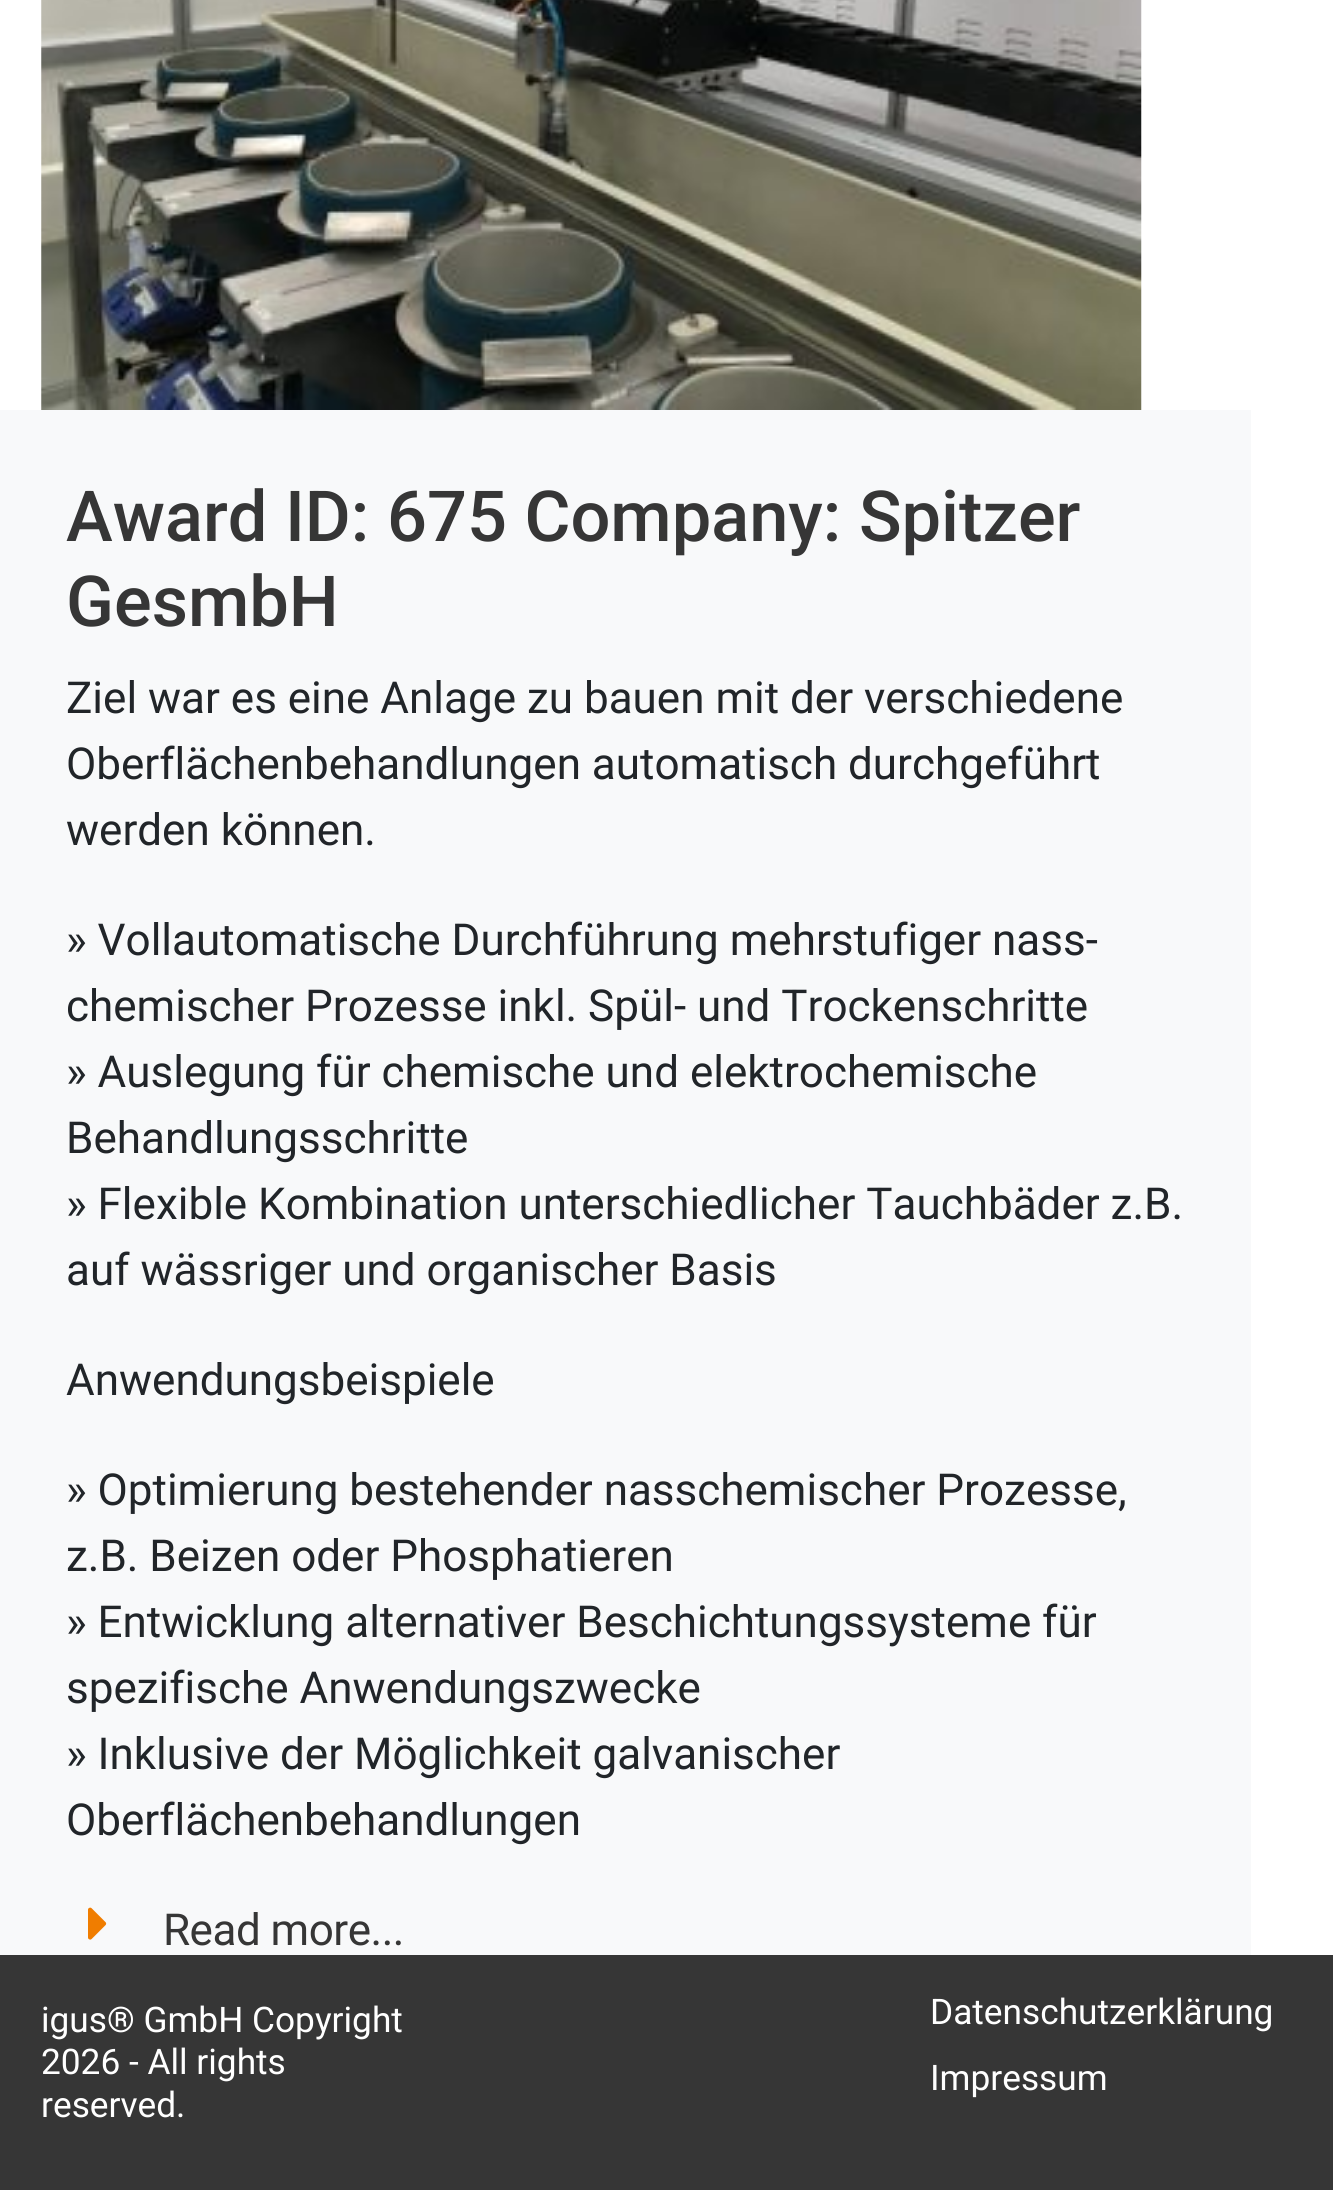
#include <cairo.h>
#include <math.h>
#include <stddef.h>

typedef struct { const char *family; double size; int italic, bold; unsigned color; } style_t;
static cairo_t *ctx;

static void ink(unsigned color) {
    cairo_set_source_rgb(ctx, (color >> 16) / 255.0, (color >> 8 & 255) / 255.0, (color & 255) / 255.0);
}

static void write(double x, double y, const char *s, const style_t *st) {
    cairo_select_font_face(ctx, st->family, st->italic ? CAIRO_FONT_SLANT_ITALIC : CAIRO_FONT_SLANT_NORMAL,
        st->bold ? CAIRO_FONT_WEIGHT_BOLD : CAIRO_FONT_WEIGHT_NORMAL);
    cairo_set_font_size(ctx, st->size);
    ink(st->color);
    cairo_move_to(ctx, x, y);
    cairo_show_text(ctx, s);
}

static void write_spaced(double x, double y, const char *s, double letter, double word) {
    cairo_move_to(ctx, x, y);
    while (*s) {
        char ch[5] = {0};
        int n = 0;
        do ch[n++] = *s++; while ((*s & 0xC0) == 0x80);
        cairo_show_text(ctx, ch);
        cairo_rel_move_to(ctx, letter + word * (*ch == ' '), 0);
    }
}

static void block(double x, double y, double w, double h, unsigned color) {
    ink(color);
    cairo_rectangle(ctx, x, y, w, h);
    cairo_fill(ctx);
}

static void paste(const char *path, double x, double y, double w, double h) {
    cairo_surface_t *image = cairo_image_surface_create_from_png(path);
    cairo_save(ctx);
    cairo_set_source_surface(ctx, image, x, y);
    cairo_rectangle(ctx, x, y, w, h);
    cairo_fill(ctx);
    cairo_restore(ctx);
    cairo_surface_destroy(image);
}

static const style_t s1 = {"Roboto Medium", 70.4, 0, 0, 0x363636};
static const style_t s2 = {"Roboto", 44, 0, 0, 0x212529};
static const style_t s3 = {"Roboto", 35.25, 0, 0, 0xffffff};

int main(void) {
    cairo_surface_t *surface = cairo_image_surface_create(CAIRO_FORMAT_RGB24, 1333, 2190);
    ctx = cairo_create(surface);
    cairo_font_options_t *options = cairo_font_options_create();
    cairo_font_options_set_hint_metrics(options, CAIRO_HINT_METRICS_OFF);
    cairo_font_options_set_hint_style(options, CAIRO_HINT_STYLE_NONE);
    cairo_set_font_options(ctx, options);
    cairo_set_miter_limit(ctx, 4);
    ink(0xffffff);
    cairo_paint(ctx);
    paste("pic1.png", 41, 0, 1101, 410);
    block(0, 410, 1251, 1545, 0xf8f9fa);
    write(66, 541, "Award ID: 675 Company: Spitzer", &s1);
    write(66, 626, "GesmbH", &s1);
    write(66, 713, "Ziel war es eine Anlage zu bauen mit der verschiedene", &s2);
    write(66, 779, "Oberflächenbehandlungen automatisch durchgeführt", &s2);
    write(66, 845, "werden können.", &s2);
    write(66, 955, "» Vollautomatische Durchführung mehrstufiger nass-", &s2);
    write(66, 1021, "chemischer Prozesse inkl. Spül- und Trockenschritte", &s2);
    write(66, 1087, "» Auslegung für chemische und elektrochemische", &s2);
    write(66, 1153, "Behandlungsschritte", &s2);
    write(66, 1219, "» Flexible Kombination unterschiedlicher Tauchbäder z.B.", &s2);
    write(66, 1285, "auf wässriger und organischer Basis", &s2);
    write(66, 1395, "Anwendungsbeispiele", &s2);
    write(66, 1505, "» Optimierung bestehender nasschemischer Prozesse,", &s2);
    write(66, 1571, "z.B. Beizen oder Phosphatieren", &s2);
    write(66, 1637, "» Entwicklung alternativer Beschichtungssysteme für", &s2);
    write(66, 1703, "spezifische Anwendungszwecke", &s2);
    write(66, 1769, "» Inklusive der Möglichkeit galvanischer", &s2);
    write(66, 1835, "Oberflächenbehandlungen", &s2);
    paste("pic2.png", 88, 1907, 19, 33);
    ink(0x363636);
    write_spaced(163, 1945, "Read more...", -0.5, 0);
    block(0, 1955, 1333, 235, 0x363636);
    write(41, 2032, "igus® GmbH Copyright", &s3);
    write(41, 2074, "2026 - All rights", &s3);
    write(41, 2117, "reserved.", &s3);
    write(930, 2024, "Datenschutzerklärung", &s3);
    write(930, 2090, "Impressum", &s3);
    cairo_surface_write_to_png(surface, "screenshot.png");
    cairo_font_options_destroy(options);
    cairo_destroy(ctx);
    cairo_surface_destroy(surface);
    return 0;
}
